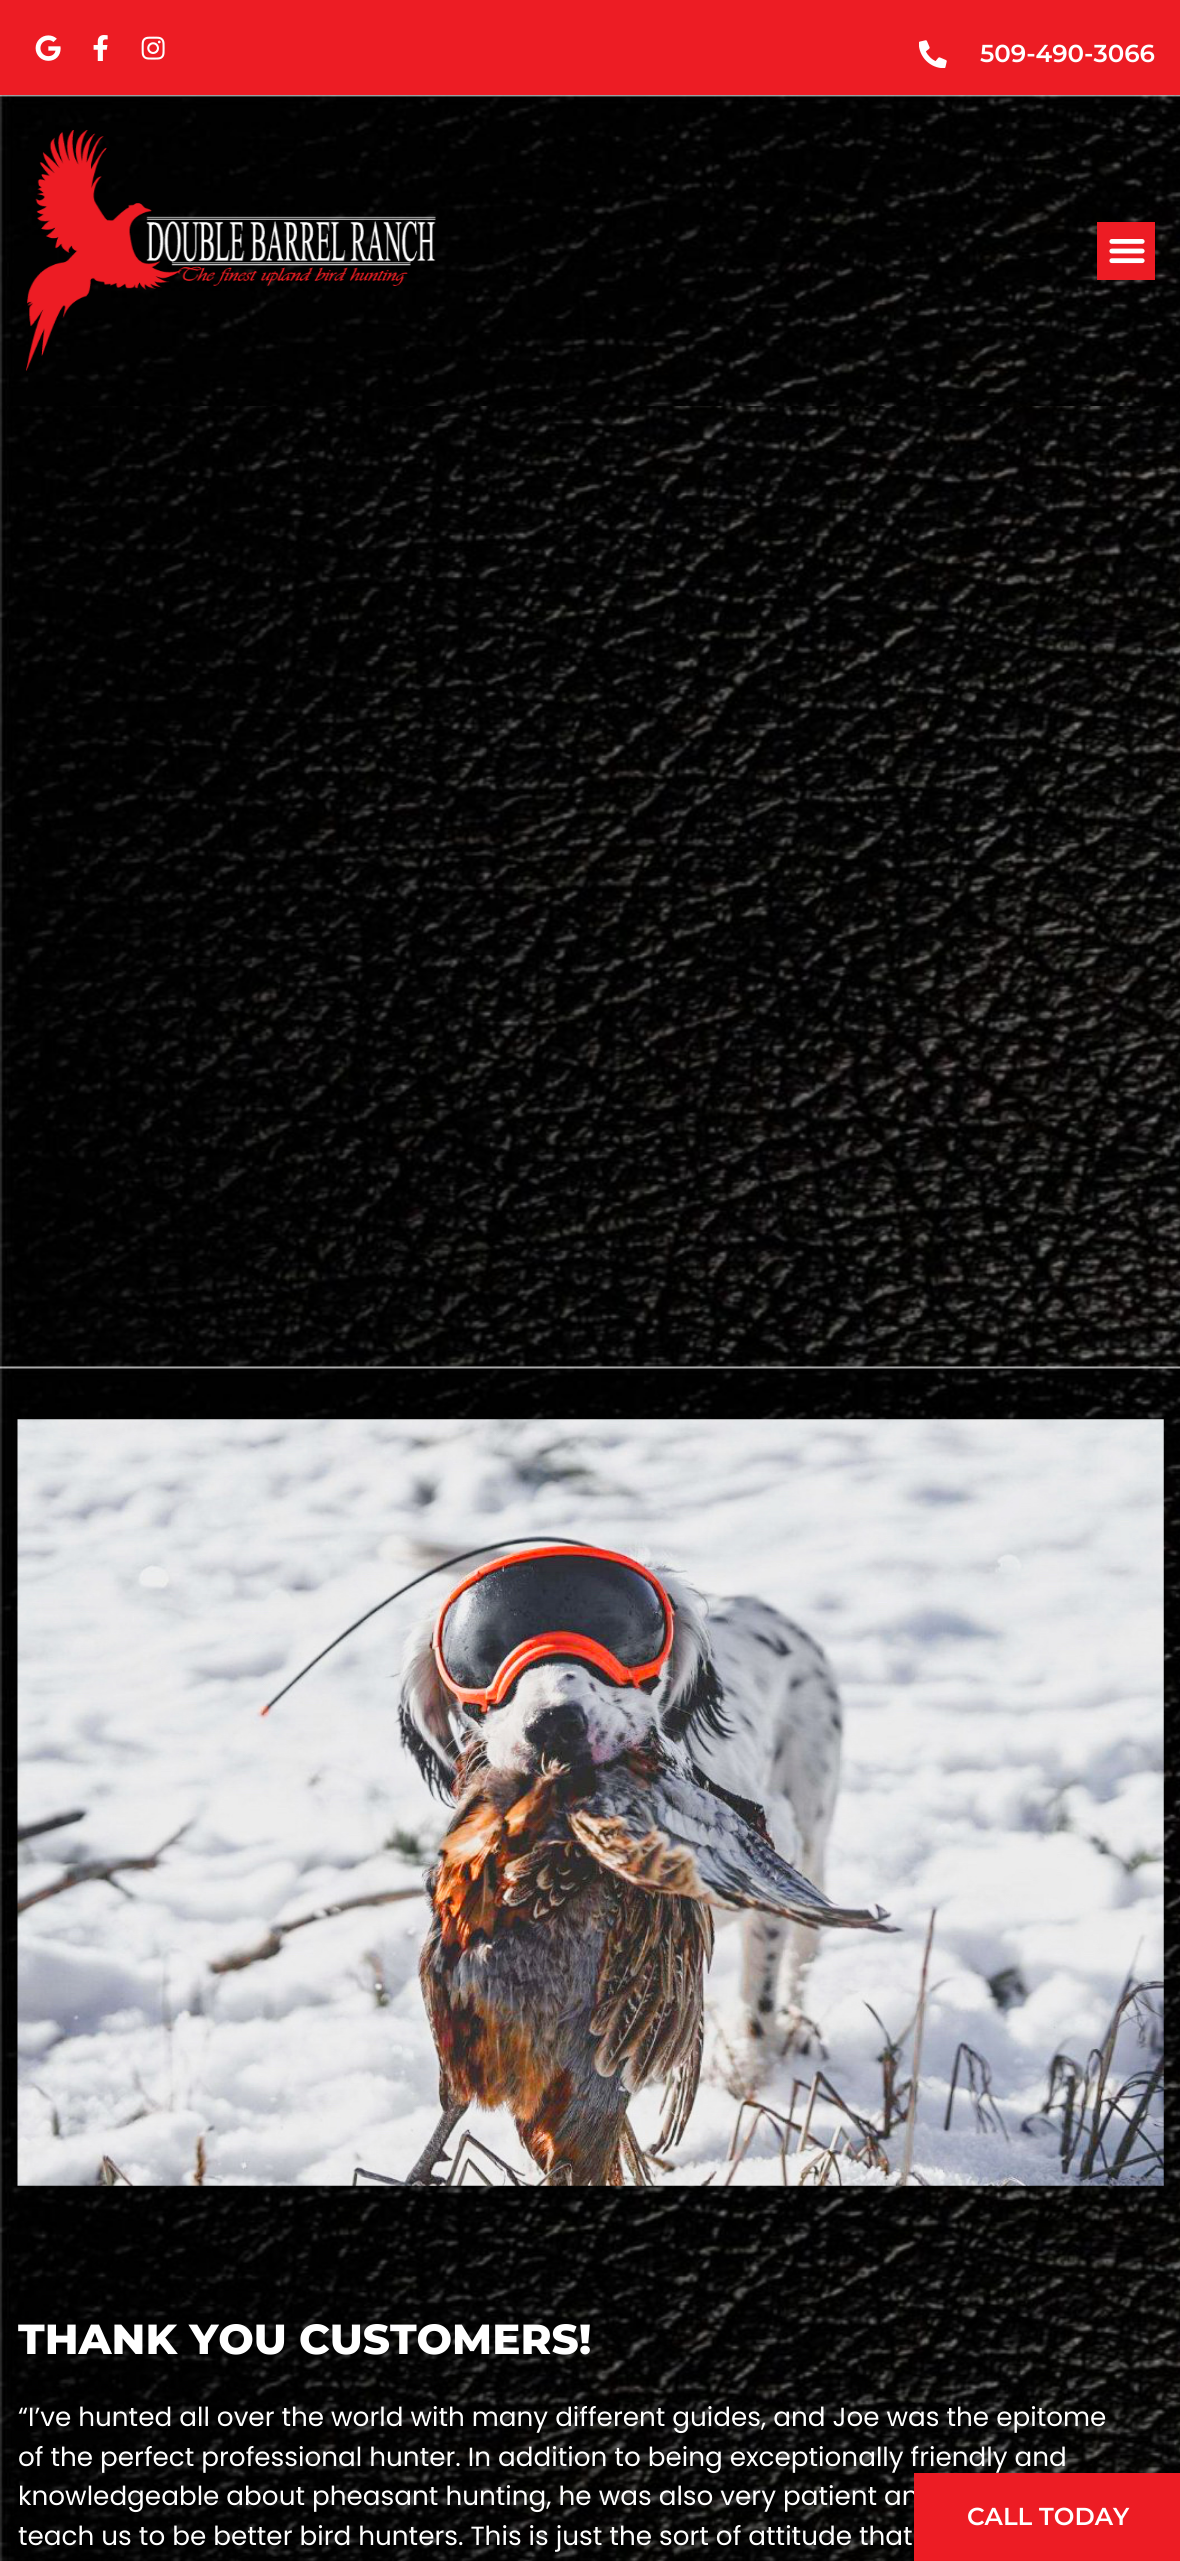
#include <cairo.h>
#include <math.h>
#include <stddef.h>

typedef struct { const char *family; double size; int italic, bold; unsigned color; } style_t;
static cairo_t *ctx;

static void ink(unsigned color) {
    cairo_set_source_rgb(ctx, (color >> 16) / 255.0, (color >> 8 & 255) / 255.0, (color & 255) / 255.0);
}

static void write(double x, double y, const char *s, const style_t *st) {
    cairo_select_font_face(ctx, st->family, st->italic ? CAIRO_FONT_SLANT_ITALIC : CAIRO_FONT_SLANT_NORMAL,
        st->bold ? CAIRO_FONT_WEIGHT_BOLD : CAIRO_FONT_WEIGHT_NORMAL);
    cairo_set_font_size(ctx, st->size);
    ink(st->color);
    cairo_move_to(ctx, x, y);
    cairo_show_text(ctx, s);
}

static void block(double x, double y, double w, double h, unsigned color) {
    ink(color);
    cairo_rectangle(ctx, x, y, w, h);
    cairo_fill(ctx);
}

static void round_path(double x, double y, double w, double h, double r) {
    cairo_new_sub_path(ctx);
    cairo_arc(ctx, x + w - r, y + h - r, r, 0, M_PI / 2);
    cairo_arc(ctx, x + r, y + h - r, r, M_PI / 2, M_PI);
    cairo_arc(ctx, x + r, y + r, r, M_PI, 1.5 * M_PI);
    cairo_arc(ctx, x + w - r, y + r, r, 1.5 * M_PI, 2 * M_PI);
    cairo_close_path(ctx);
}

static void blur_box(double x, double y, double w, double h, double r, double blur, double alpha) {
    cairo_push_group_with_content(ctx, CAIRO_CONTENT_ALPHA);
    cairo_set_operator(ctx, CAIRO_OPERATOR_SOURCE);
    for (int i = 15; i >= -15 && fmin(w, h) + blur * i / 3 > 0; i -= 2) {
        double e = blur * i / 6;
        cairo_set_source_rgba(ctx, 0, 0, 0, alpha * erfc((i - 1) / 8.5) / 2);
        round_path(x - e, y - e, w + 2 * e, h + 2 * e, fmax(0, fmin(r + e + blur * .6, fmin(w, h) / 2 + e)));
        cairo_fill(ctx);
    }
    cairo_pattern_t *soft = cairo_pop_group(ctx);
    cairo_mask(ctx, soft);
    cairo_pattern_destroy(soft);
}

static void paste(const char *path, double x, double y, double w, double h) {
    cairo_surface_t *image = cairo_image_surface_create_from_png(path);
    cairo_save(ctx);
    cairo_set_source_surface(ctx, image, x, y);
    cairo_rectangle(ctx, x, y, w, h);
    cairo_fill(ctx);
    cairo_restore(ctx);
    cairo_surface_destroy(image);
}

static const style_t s1 = {"Montserrat SemiBold", 24.5, 0, 0, 0xffffff};
static const style_t s2 = {"Poppins", 26.25, 0, 0, 0xffffff};
static const style_t s3 = {"Montserrat ExtraBold", 42, 0, 0, 0xffffff};

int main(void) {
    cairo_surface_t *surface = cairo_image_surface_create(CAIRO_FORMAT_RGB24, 1180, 2561);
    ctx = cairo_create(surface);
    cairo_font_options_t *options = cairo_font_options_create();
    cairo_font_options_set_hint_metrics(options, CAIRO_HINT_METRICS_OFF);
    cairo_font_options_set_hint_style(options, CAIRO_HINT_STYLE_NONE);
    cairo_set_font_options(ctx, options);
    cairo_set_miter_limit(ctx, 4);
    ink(0xffffff);
    cairo_paint(ctx);
    paste("pic8.png", 0, 406, 1180, 961);
    ink(0x000000);
    blur_box(0, 9, 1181, 406, 0, 26, 0.1);
    block(0, 0, 1180, 95, 0xed1c24);
    paste("pic1.png", 35, 35, 26, 26);
    paste("pic2.png", 93, 35, 15, 26);
    paste("pic3.png", 141, 36, 24, 24);
    paste("pic4.png", 919, 40, 28, 28);
    write(980, 62, "509-490-3066", &s1);
    paste("pic5.png", 0, 95, 1180, 311);
    paste("pic6.png", 26, 130, 410, 241);
    block(1097, 222, 58, 58, 0xed1c24);
    paste("pic7.png", 1109, 239, 36, 25);
    paste("pic9.png", 0, 1366, 1180, 1195);
    write(18, 2466, "of the perfect professional hunter. In addition to being exceptionally friendly and", &s2);
    write(18, 2505, "knowledgeable about pheasant hunting, he was also very patient an", &s2);
    block(914, 2473, 266, 88, 0xed1c24);
    write(967, 2525, "CALL TODAY", &s1);
    paste("pic10.png", 17, 1419, 1147, 767);
    write(18, 2354, "THANK YOU CUSTOMERS!", &s3);
    write(18, 2426, "“I’ve hunted all over the world with many different guides, and Joe was the epitome", &s2);
    write(18, 2545, "teach us to be better bird hunters. This is just the sort of attitude that", &s2);
    cairo_surface_write_to_png(surface, "screenshot.png");
    cairo_font_options_destroy(options);
    cairo_destroy(ctx);
    cairo_surface_destroy(surface);
    return 0;
}
